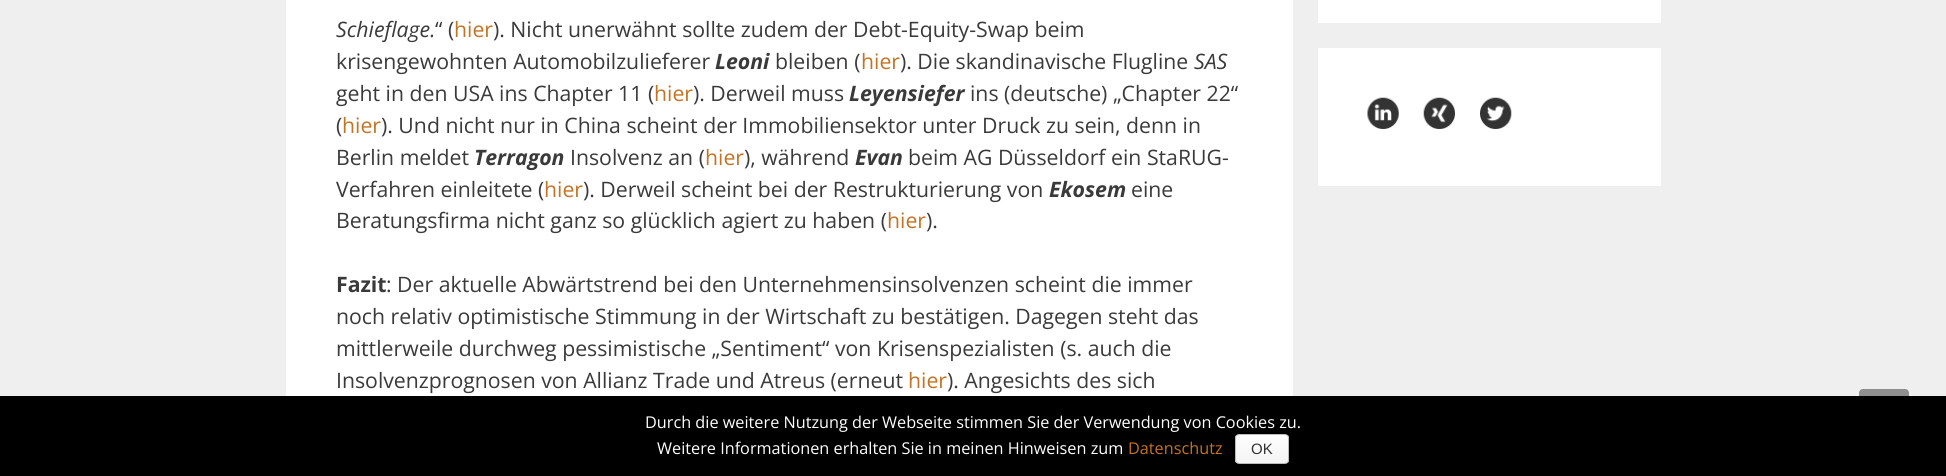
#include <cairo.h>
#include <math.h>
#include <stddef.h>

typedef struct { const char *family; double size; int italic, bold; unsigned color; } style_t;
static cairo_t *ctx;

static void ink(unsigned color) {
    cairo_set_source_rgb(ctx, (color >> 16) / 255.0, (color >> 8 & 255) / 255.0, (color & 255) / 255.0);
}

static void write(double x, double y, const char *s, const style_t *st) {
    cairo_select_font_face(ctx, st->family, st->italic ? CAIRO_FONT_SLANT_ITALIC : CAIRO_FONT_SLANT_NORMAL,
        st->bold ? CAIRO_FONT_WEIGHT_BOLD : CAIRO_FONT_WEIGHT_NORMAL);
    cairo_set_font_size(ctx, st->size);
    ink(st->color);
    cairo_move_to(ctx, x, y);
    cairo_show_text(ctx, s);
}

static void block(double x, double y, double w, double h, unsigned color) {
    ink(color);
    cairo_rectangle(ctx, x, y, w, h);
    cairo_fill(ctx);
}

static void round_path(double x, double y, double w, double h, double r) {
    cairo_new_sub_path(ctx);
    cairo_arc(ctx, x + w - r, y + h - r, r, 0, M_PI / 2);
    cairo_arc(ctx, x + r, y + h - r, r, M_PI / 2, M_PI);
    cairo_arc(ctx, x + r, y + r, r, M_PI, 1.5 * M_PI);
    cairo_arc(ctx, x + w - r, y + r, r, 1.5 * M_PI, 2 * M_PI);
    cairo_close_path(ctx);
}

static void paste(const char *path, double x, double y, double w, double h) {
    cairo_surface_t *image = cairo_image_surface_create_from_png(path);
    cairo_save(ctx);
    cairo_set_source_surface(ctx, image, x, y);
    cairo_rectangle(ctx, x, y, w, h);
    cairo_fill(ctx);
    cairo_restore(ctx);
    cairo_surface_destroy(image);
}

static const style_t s1 = {"Open Sans", 21.25, 1, 0, 0x3a3a3a};
static const style_t s2 = {"Open Sans", 21.25, 0, 0, 0x3a3a3a};
static const style_t s3 = {"Open Sans", 21.25, 0, 0, 0xc37323};
static const style_t s4 = {"Open Sans", 21.25, 1, 1, 0x3a3a3a};
static const style_t s5 = {"Open Sans", 21.25, 0, 1, 0x3a3a3a};
static const style_t s6 = {"Open Sans", 16.25, 0, 0, 0xffffff};
static const style_t s7 = {"Open Sans", 16.25, 0, 0, 0xc37323};
static const style_t s8 = {"Liberation Sans", 15, 0, 0, 0x333333};

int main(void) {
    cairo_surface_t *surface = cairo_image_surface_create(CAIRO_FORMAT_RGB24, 1946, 476);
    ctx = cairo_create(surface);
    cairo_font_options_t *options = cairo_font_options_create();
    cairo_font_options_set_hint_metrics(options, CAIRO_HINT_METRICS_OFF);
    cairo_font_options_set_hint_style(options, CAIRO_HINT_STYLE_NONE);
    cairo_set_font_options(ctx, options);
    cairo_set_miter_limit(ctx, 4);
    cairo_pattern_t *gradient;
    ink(0xefefef);
    cairo_paint(ctx);
    block(286, 0, 1007, 396, 0xffffff);
    write(336, 37, "Schieflage.", &s1);
    write(435, 37, "“ (", &s2);
    write(454, 37, "hier", &s3);
    write(493, 37, "). Nicht unerwähnt sollte zudem der Debt-Equity-Swap beim", &s2);
    write(336, 69, "krisengewohnten Automobilzulieferer", &s2);
    write(715, 69, "Leoni", &s4);
    write(775, 69, "bleiben (", &s2);
    write(861, 69, "hier", &s3);
    write(900, 69, "). Die skandinavische Flugline", &s2);
    write(1194, 69, "SAS", &s1);
    write(336, 101, "geht in den USA ins Chapter 11 (", &s2);
    write(654, 101, "hier", &s3);
    write(693, 101, "). Derweil muss", &s2);
    write(849, 101, "Leyensiefer", &s4);
    write(970, 101, "ins (deutsche) „Chapter 22“", &s2);
    write(336, 133, "(", &s2);
    write(342, 133, "hier", &s3);
    write(381, 133, "). Und nicht nur in China scheint der Immobiliensektor unter Druck zu sein, denn in", &s2);
    write(336, 165, "Berlin meldet", &s2);
    write(474, 165, "Terragon", &s4);
    write(570, 165, "Insolvenz an (", &s2);
    write(705, 165, "hier", &s3);
    write(744, 165, "), während", &s2);
    write(855, 165, "Evan", &s4);
    write(908, 165, "beim AG Düsseldorf ein StaRUG-", &s2);
    write(336, 197, "Verfahren einleitete (", &s2);
    write(544, 197, "hier", &s3);
    write(583, 197, "). Derweil scheint bei der Restrukturierung von", &s2);
    write(1049, 197, "Ekosem", &s4);
    write(1131, 197, "eine", &s2);
    write(336, 228, "Beratungsfirma nicht ganz so glücklich agiert zu haben (", &s2);
    write(887, 228, "hier", &s3);
    write(926, 228, ").", &s2);
    write(336, 292, "Fazit", &s5);
    write(386, 292, ": Der aktuelle Abwärtstrend bei den Unternehmensinsolvenzen scheint die immer", &s2);
    write(336, 324, "noch relativ optimistische Stimmung in der Wirtschaft zu bestätigen. Dagegen steht das", &s2);
    write(336, 356, "mittlerweile durchweg pessimistische „Sentiment“ von Krisenspezialisten (s. auch die", &s2);
    write(336, 388, "Insolvenzprognosen von Allianz Trade und Atreus (erneut", &s2);
    write(908, 388, "hier", &s3);
    write(947, 388, "). Angesichts des sich", &s2);
    block(1318, 0, 343, 23, 0xffffff);
    block(1318, 48, 343, 138, 0xffffff);
    paste("pic1.png", 1367, 97, 32, 32);
    paste("pic2.png", 1423, 97, 32, 32);
    paste("pic3.png", 1480, 97, 32, 32);
    ink(0x8f8f8f);
    round_path(1859, 389, 50, 50, 4);
    cairo_fill(ctx);
    block(0, 396, 1946, 80, 0x000000);
    write(645, 428, "Durch die weitere Nutzung der Webseite stimmen Sie der Verwendung von Cookies zu.", &s6);
    write(657, 454, "Weitere Informationen erhalten Sie in meinen Hinweisen zum", &s6);
    write(1128, 454, "Datenschutz", &s7);
    cairo_save(ctx);
    round_path(1235, 434, 54, 30, 4);
    cairo_clip(ctx);
    gradient = cairo_pattern_create_linear(1262, 435, 1262, 463);
    cairo_pattern_add_color_stop_rgba(gradient, 0, 0.996, 0.996, 0.996, 1);
    cairo_pattern_add_color_stop_rgba(gradient, 1, 0.957, 0.957, 0.957, 1);
    cairo_set_source(ctx, gradient);
    cairo_pattern_destroy(gradient);
    cairo_rectangle(ctx, 1235, 435, 54, 28);
    cairo_fill(ctx);
    cairo_restore(ctx);
    round_path(1235.5, 434.5, 53, 29, 3.5);
    ink(0xbbbbbb);
    cairo_set_line_width(ctx, 1);
    cairo_stroke(ctx);
    write(1251, 454, "OK", &s8);
    cairo_surface_write_to_png(surface, "screenshot.png");
    cairo_font_options_destroy(options);
    cairo_destroy(ctx);
    cairo_surface_destroy(surface);
    return 0;
}
